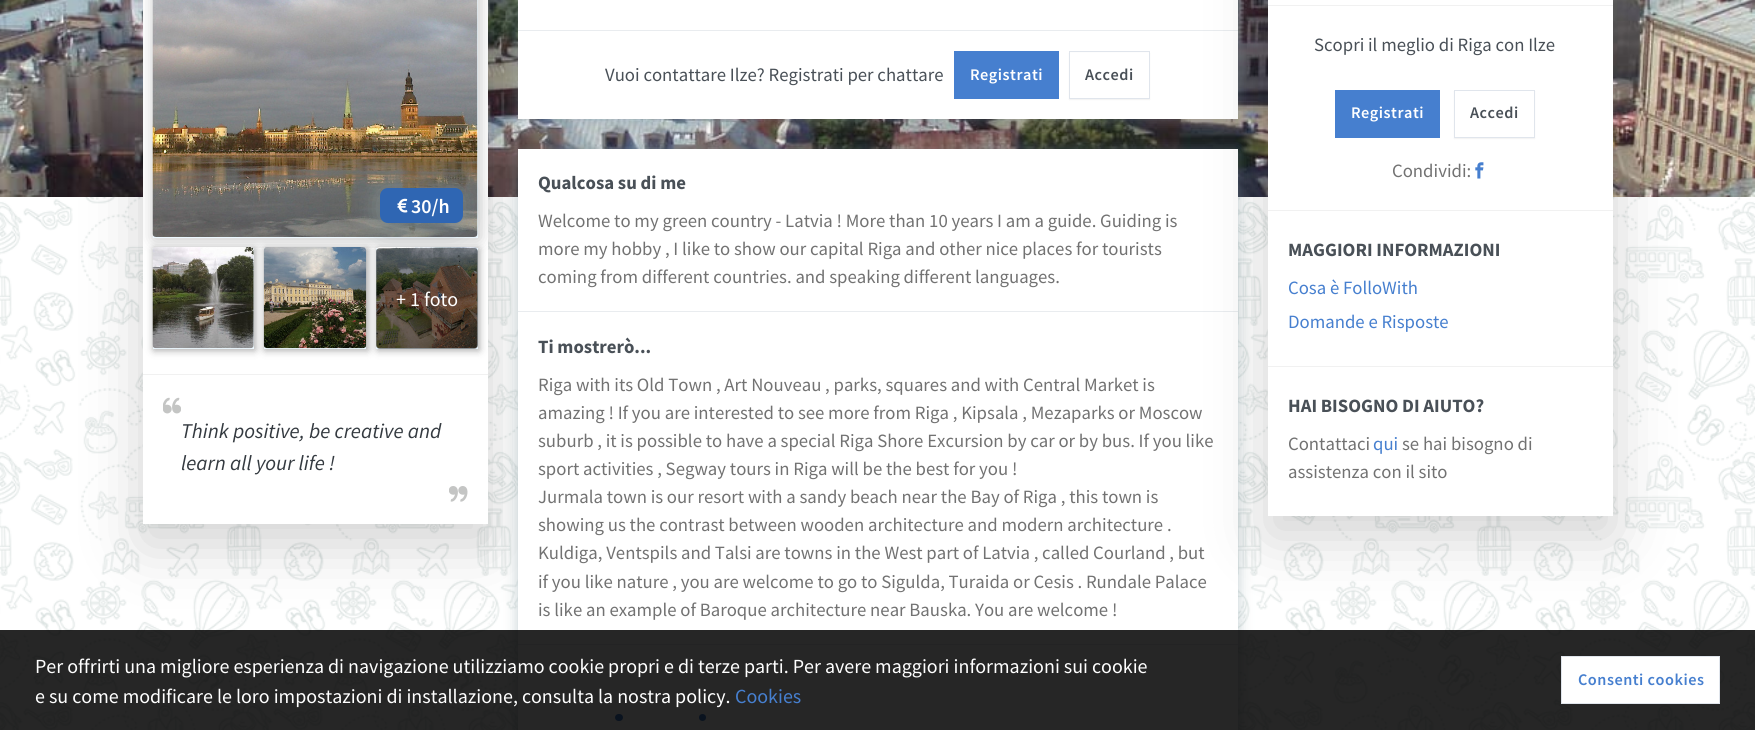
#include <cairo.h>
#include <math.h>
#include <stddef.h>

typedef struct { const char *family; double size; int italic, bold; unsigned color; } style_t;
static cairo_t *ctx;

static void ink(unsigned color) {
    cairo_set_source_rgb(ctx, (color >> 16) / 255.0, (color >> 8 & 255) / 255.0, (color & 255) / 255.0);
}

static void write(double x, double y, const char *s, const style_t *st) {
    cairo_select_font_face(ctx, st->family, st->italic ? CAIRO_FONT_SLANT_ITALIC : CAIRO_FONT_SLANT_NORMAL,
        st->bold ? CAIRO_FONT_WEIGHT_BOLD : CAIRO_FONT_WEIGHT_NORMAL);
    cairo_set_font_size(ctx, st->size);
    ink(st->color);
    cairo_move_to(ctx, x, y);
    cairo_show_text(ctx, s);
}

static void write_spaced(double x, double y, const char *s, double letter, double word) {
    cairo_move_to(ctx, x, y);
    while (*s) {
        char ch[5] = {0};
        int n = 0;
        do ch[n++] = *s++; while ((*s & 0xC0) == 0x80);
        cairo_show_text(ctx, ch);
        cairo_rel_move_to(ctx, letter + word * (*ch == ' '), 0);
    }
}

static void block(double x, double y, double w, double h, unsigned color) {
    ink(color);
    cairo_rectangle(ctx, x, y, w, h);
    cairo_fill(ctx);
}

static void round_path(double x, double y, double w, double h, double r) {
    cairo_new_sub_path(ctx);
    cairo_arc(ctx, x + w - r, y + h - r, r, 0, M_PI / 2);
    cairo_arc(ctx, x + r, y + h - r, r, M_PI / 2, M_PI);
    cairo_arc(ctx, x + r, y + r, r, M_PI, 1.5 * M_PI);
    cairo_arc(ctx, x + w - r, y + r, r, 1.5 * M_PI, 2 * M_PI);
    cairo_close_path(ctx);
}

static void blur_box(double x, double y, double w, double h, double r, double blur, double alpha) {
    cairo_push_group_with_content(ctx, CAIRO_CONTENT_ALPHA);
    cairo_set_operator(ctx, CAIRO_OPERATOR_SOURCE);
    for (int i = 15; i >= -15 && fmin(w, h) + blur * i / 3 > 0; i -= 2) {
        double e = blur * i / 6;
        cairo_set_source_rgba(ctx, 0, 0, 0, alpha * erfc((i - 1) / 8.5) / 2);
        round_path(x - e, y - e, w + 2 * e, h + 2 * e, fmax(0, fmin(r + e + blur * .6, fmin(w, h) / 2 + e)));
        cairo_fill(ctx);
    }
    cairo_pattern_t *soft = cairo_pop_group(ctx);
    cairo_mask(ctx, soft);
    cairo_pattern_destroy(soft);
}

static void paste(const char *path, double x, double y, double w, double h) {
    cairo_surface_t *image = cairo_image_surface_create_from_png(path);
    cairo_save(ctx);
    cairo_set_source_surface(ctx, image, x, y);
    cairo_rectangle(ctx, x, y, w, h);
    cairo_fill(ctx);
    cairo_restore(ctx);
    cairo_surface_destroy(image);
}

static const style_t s1 = {"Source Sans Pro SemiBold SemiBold", 20, 0, 0, 0xffffff};
static const style_t s2 = {"Source Sans Pro", 20, 0, 0, 0xffffff};
static const style_t s3 = {"Source Sans Pro", 21, 1, 0, 0x343a40};
static const style_t s4 = {"Source Sans Pro", 18.75, 0, 0, 0x495057};
static const style_t s5 = {"Source Sans Pro", 18.75, 0, 1, 0x495057};
static const style_t s6 = {"Source Sans Pro", 18.75, 0, 0, 0x727272};
static const style_t s7 = {"Source Sans Pro", 18.75, 0, 0, 0x467fcf};
static const style_t s8 = {"Source Sans Pro", 20, 0, 0, 0x467fcf};

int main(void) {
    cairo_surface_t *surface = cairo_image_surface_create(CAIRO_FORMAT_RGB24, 1755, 730);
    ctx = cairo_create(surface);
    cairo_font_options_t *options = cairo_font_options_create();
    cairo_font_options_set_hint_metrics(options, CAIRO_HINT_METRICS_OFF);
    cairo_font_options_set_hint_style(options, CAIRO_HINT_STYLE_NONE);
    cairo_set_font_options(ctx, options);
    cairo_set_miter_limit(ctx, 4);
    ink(0xffffff);
    cairo_paint(ctx);
    paste("pic1.png", 0, 197, 1755, 533);
    paste("pic2.png", 0, 0, 1755, 197);
    ink(0x000000);
    blur_box(143, -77, 345, 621, 0, 30, 0.18);
    block(143, 0, 345, 524, 0xffffff);
    ink(0x3d3d3d);
    blur_box(154, -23, 325, 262, 0, 7.5, 0.32);
    block(153, 0, 325, 238, 0xecf7fe);
    paste("pic3.png", 152, 0, 326, 237);
    ink(0x808e90);
    blur_box(378, 190, 82, 35, 8, 12.5, 1);
    ink(0x2f66b3);
    round_path(380, 188, 83, 35, 8);
    cairo_fill(ctx);
    paste("pic4.png", 397, 198, 11, 15);
    write(411, 213, "30/h", &s1);
    block(152, 248, 329, 6, 0xffffff);
    ink(0x3d3d3d);
    blur_box(154, 249, 101, 101, 0, 4, 0.49);
    block(153, 248, 101, 101, 0xecf7fe);
    paste("pic5.png", 152, 247, 102, 102);
    ink(0x3d3d3d);
    blur_box(265, 249, 103, 101, 0, 4, 0.49);
    block(264, 248, 102, 101, 0xecf7fe);
    paste("pic6.png", 263, 247, 104, 102);
    ink(0x3d3d3d);
    blur_box(378, 249, 101, 101, 0, 4, 0.49);
    block(376, 248, 102, 101, 0xecf7fe);
    paste("pic7.png", 376, 247, 102, 102);
    cairo_set_source_rgba(ctx, 0, 0, 0, 0.4);
    round_path(376, 248, 102, 101, 4);
    cairo_fill(ctx);
    write(396, 306, "+ 1 foto", &s2);
    block(143, 374, 345, 1, 0xf1f1f1);
    paste("pic8.png", 163, 397, 18, 17);
    write(181, 438, "Think positive, be creative and", &s3);
    write(181, 470, "learn all your life !", &s3);
    paste("pic9.png", 449, 486, 19, 16);
    ink(0x7a979d);
    blur_box(518, -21, 720, 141, 0, 7, 0.46);
    block(518, 0, 720, 119, 0xffffff);
    block(518, 30, 720, 1, 0xe9ecef);
    write(605, 81, "Vuoi contattare Ilze? Registrati per chattare", &s4);
    block(954, 51, 105, 48, 0x467fcf);
    cairo_select_font_face(ctx, "Source Sans Pro SemiBold SemiBold", CAIRO_FONT_SLANT_NORMAL, CAIRO_FONT_WEIGHT_NORMAL);
    cairo_set_font_size(ctx, 16.25);
    ink(0xffffff);
    write_spaced(970, 80, "Registrati", 0.5, 0);
    ink(0x000000);
    blur_box(1069, 53, 81, 47, 0, 0.5, 0.05);
    block(1070, 53, 79, 45, 0xffffff);
    cairo_rectangle(ctx, 1069.5, 51.5, 80, 47);
    ink(0xe0e5ec);
    cairo_set_line_width(ctx, 1);
    cairo_stroke(ctx);
    ink(0x495057);
    write_spaced(1085, 80, "Accedi", 0.5, 0);
    ink(0x7a979d);
    blur_box(518, 150, 720, 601, 0, 7, 0.46);
    block(518, 149, 720, 581, 0xffffff);
    block(518, 311, 720, 1, 0xe9ecef);
    write(538, 189, "Qualcosa su di me", &s5);
    write(538, 227, "Welcome to my green country - Latvia ! More than 10 years I am a guide. Guiding is", &s6);
    write(538, 255, "more my hobby , I like to show our capital Riga and other nice places for tourists", &s6);
    write(538, 283, "coming from different countries. and speaking different languages.", &s6);
    block(518, 644, 720, 1, 0xe9ecef);
    write(538, 353, "Ti mostrerò...", &s5);
    write(538, 391, "Riga with its Old Town , Art Nouveau , parks, squares and with Central Market is", &s6);
    write(538, 419, "amazing ! If you are interested to see more from Riga , Kipsala , Mezaparks or Moscow", &s6);
    write(538, 447, "suburb , it is possible to have a special Riga Shore Excursion by car or by bus. If you like", &s6);
    write(538, 475, "sport activities , Segway tours in Riga will be the best for you !", &s6);
    write(538, 503, "Jurmala town is our resort with a sandy beach near the Bay of Riga , this town is", &s6);
    write(538, 531, "showing us the contrast between wooden architecture and modern architecture .", &s6);
    write(538, 559, "Kuldiga, Ventspils and Talsi are towns in the West part of Latvia , called Courland , but", &s6);
    write(538, 588, "if you like nature , you are welcome to go to Sigulda, Turaida or Cesis . Rundale Palace", &s6);
    write(538, 616, "is like an example of Baroque architecture near Bauska. You are welcome !", &s6);
    ink(0x467fcf);
    round_path(615, 714, 8, 7, 3.5);
    cairo_fill(ctx);
    cairo_arc(ctx, 702.5, 717.5, 3.5, 0, 2 * M_PI);
    cairo_fill(ctx);
    ink(0x000000);
    blur_box(1268, -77, 345, 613, 0, 30, 0.18);
    block(1268, 0, 345, 516, 0xffffff);
    block(1268, 5, 345, 1, 0xf1f1f1);
    write(1314, 51, "Scopri il meglio di Riga con Ilze", &s4);
    block(1335, 90, 105, 48, 0x467fcf);
    cairo_select_font_face(ctx, "Source Sans Pro SemiBold SemiBold", CAIRO_FONT_SLANT_NORMAL, CAIRO_FONT_WEIGHT_NORMAL);
    cairo_set_font_size(ctx, 16.25);
    ink(0xffffff);
    write_spaced(1351, 118, "Registrati", 0.5, 0);
    ink(0x000000);
    blur_box(1454, 91, 81, 48, 0, 0.5, 0.05);
    ink(0xffffff);
    cairo_rectangle(ctx, 1454.5, 90.5, 80, 47);
    cairo_fill_preserve(ctx);
    ink(0xe0e5ec);
    cairo_stroke(ctx);
    ink(0x495057);
    write_spaced(1470, 118, "Accedi", 0.5, 0);
    write(1392, 177, "Condividi:", &s6);
    paste("pic10.png", 1475, 162, 9, 17);
    block(1268, 210, 345, 1, 0xf1f1f1);
    write(1288, 256, "MAGGIORI INFORMAZIONI", &s5);
    write(1288, 294, "Cosa è FolloWith", &s7);
    write(1288, 328, "Domande e Risposte", &s7);
    block(1268, 366, 345, 1, 0xf1f1f1);
    write(1288, 412, "HAI BISOGNO DI AIUTO?", &s5);
    write(1288, 450, "Contattaci", &s6);
    write(1373, 450, "qui", &s7);
    write(1402, 450, "se hai bisogno di", &s6);
    write(1288, 478, "assistenza con il sito", &s6);
    cairo_set_source_rgba(ctx, 0, 0, 0, 0.85);
    cairo_rectangle(ctx, 0, 630, 1755, 100);
    cairo_fill(ctx);
    write(35, 673, "Per offrirti una migliore esperienza di navigazione utilizziamo cookie propri e di terze parti. Per avere maggiori informazioni sui cookie", &s2);
    write(35, 703, "e su come modificare le loro impostazioni di installazione, consulta la nostra policy.", &s2);
    write(735, 703, "Cookies", &s8);
    ink(0xffffff);
    cairo_rectangle(ctx, 1561.5, 656.5, 158, 47);
    cairo_fill_preserve(ctx);
    ink(0xe0e5ec);
    cairo_stroke(ctx);
    cairo_select_font_face(ctx, "Source Sans Pro SemiBold SemiBold", CAIRO_FONT_SLANT_NORMAL, CAIRO_FONT_WEIGHT_NORMAL);
    cairo_set_font_size(ctx, 16.25);
    ink(0x467fcf);
    write_spaced(1578, 685, "Consenti cookies", 0.5, 0);
    cairo_surface_write_to_png(surface, "screenshot.png");
    cairo_font_options_destroy(options);
    cairo_destroy(ctx);
    cairo_surface_destroy(surface);
    return 0;
}
